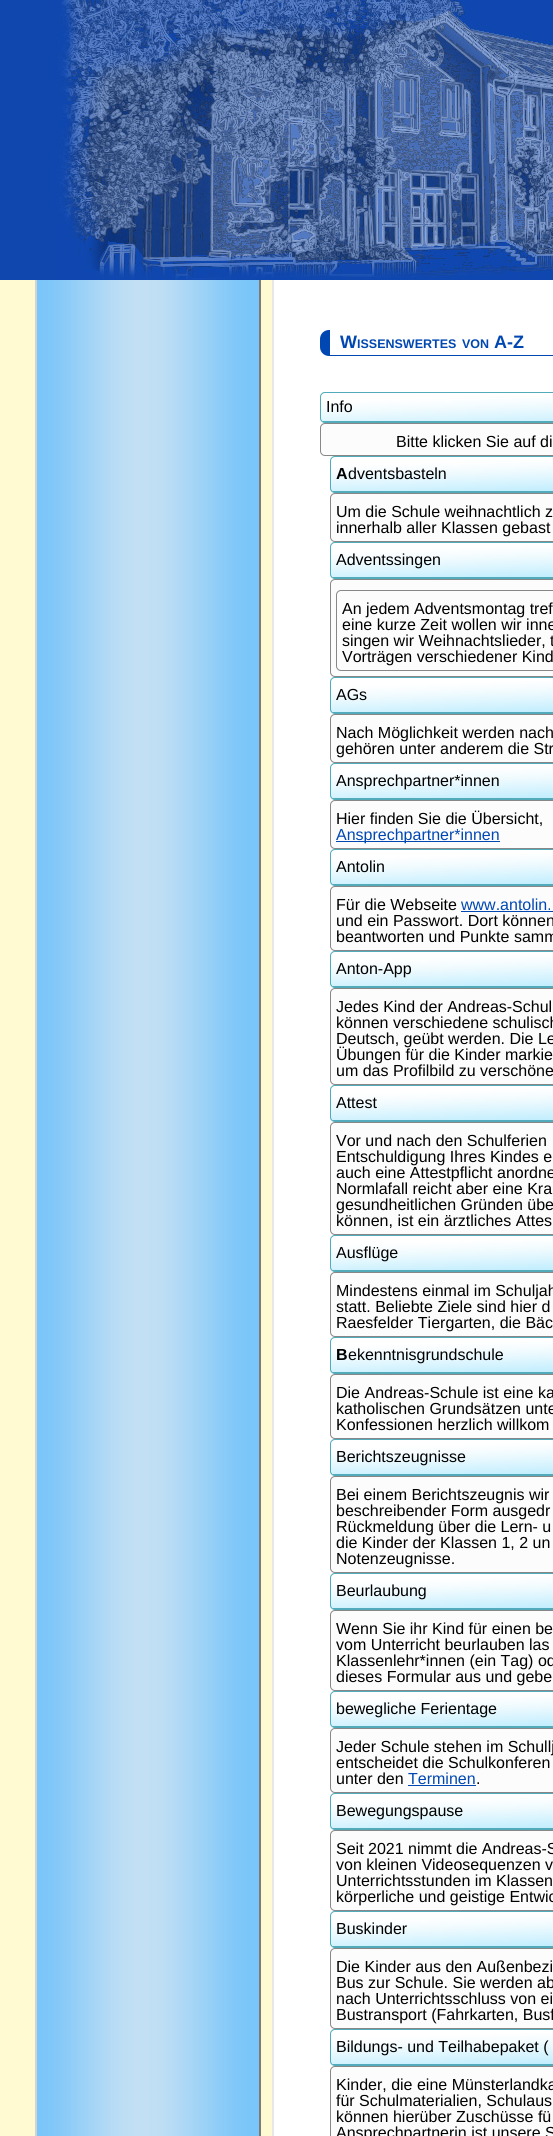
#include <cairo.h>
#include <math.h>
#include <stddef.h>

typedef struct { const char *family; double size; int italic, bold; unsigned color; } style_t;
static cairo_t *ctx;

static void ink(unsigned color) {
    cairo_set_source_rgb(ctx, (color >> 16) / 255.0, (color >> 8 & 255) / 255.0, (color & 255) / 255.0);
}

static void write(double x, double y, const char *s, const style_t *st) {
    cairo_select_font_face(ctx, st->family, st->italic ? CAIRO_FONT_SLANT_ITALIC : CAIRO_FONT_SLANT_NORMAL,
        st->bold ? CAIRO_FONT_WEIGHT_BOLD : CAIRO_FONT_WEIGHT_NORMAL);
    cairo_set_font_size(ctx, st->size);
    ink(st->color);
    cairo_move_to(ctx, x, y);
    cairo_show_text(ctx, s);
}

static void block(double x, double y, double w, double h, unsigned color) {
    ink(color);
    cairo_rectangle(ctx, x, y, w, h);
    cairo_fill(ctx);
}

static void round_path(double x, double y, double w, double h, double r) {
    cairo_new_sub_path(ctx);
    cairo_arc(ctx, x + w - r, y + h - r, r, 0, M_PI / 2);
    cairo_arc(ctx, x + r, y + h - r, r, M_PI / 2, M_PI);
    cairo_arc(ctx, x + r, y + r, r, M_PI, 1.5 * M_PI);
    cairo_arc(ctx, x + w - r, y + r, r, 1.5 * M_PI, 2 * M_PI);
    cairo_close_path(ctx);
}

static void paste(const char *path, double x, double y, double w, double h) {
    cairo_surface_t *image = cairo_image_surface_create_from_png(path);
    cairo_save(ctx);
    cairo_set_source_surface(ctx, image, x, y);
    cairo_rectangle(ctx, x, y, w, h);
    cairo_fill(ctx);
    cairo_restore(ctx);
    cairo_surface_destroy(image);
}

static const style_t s1 = {"Liberation Sans", 18, 0, 1, 0x0047b2};
static const style_t s2 = {"Liberation Sans", 12.5, 0, 1, 0x0047b2};
static const style_t s3 = {"Liberation Sans", 16, 0, 0, 0x000000};
static const style_t s4 = {"Liberation Sans", 16, 0, 1, 0x000000};
static const style_t s5 = {"Liberation Sans", 16, 0, 0, 0x0047b2};

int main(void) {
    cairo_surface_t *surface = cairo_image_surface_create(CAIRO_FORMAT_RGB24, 553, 2136);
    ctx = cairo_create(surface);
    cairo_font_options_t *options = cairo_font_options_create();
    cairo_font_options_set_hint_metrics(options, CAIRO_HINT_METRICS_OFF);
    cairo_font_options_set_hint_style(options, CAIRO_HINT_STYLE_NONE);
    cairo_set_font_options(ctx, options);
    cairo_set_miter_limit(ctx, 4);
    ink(0xfffad1);
    cairo_paint(ctx);
    paste("pic1.png", 35, 280, 518, 1856);
    block(0, 0, 58, 280, 0x0f47af);
    paste("pic2.png", 58, 0, 495, 280);
    ink(0x0047b2);
    cairo_set_fill_rule(ctx, CAIRO_FILL_RULE_EVEN_ODD);
    cairo_new_path(ctx);
    cairo_move_to(ctx, 329, 330);
    cairo_line_to(ctx, 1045, 330);
    cairo_line_to(ctx, 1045, 356);
    cairo_line_to(ctx, 329, 356);
    cairo_curve_to(ctx, 324, 356, 320, 352, 320, 347);
    cairo_line_to(ctx, 320, 339);
    cairo_curve_to(ctx, 320, 334, 324, 330, 329, 330);
    cairo_close_path(ctx);
    cairo_move_to(ctx, 330, 330);
    cairo_line_to(ctx, 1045, 330);
    cairo_line_to(ctx, 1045, 355);
    cairo_line_to(ctx, 330, 355);
    cairo_close_path(ctx);
    cairo_fill(ctx);
    write(340, 348, "W", &s1);
    write(357, 348, "ISSENSWERTES", &s2);
    write(462, 348, "VON", &s2);
    write(494, 348, "A-Z", &s1);
    paste("pic3.png", 320, 392, 233, 31);
    round_path(320.5, 392.5, 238, 30, 4.5);
    ink(0x52abbb);
    cairo_set_line_width(ctx, 1);
    cairo_stroke(ctx);
    block(323, 421, 230, 1, 0x52abbb);
    write(326, 412, "Info", &s3);
    ink(0xfcfcfc);
    round_path(320.5, 423.5, 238, 32, 4.5);
    cairo_fill_preserve(ctx);
    ink(0x878787);
    cairo_stroke(ctx);
    write(396, 447, "Bitte klicken Sie auf di", &s3);
    paste("pic4.png", 330, 456, 223, 37);
    round_path(330.5, 456.5, 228, 36, 4.5);
    ink(0x52abbb);
    cairo_stroke(ctx);
    block(333, 491, 220, 1, 0x52abbb);
    write(336, 479, "A", &s4);
    write(348, 479, "dventsbasteln", &s3);
    ink(0xfcfcfc);
    round_path(330.5, 493.5, 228, 48, 4.5);
    cairo_fill_preserve(ctx);
    ink(0x878787);
    cairo_stroke(ctx);
    write(336, 517, "Um die Schule weihnachtlich z", &s3);
    write(336, 533, "innerhalb aller Klassen gebast", &s3);
    paste("pic4.png", 330, 542, 223, 37);
    round_path(330.5, 542.5, 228, 36, 4.5);
    ink(0x52abbb);
    cairo_stroke(ctx);
    block(333, 577, 220, 1, 0x52abbb);
    write(336, 565, "Adventssingen", &s3);
    ink(0xfcfcfc);
    round_path(330.5, 579.5, 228, 97, 4.5);
    cairo_fill_preserve(ctx);
    ink(0x878787);
    cairo_stroke(ctx);
    round_path(336.5, 590.5, 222, 80, 4.5);
    cairo_stroke(ctx);
    write(342, 614, "An jedem Adventsmontag tref", &s3);
    write(342, 630, "eine kurze Zeit wollen wir inne", &s3);
    write(342, 646, "singen wir Weihnachtslieder, t", &s3);
    write(342, 662, "Vorträgen verschiedener Kind", &s3);
    paste("pic4.png", 330, 677, 223, 37);
    round_path(330.5, 677.5, 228, 36, 4.5);
    ink(0x52abbb);
    cairo_stroke(ctx);
    block(333, 712, 220, 1, 0x52abbb);
    write(336, 700, "AGs", &s3);
    ink(0xfcfcfc);
    round_path(330.5, 714.5, 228, 48, 4.5);
    cairo_fill_preserve(ctx);
    ink(0x878787);
    cairo_stroke(ctx);
    write(336, 738, "Nach Möglichkeit werden nach", &s3);
    write(336, 754, "gehören unter anderem die Str", &s3);
    paste("pic4.png", 330, 763, 223, 37);
    round_path(330.5, 763.5, 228, 36, 4.5);
    ink(0x52abbb);
    cairo_stroke(ctx);
    block(333, 798, 220, 1, 0x52abbb);
    write(336, 786, "Ansprechpartner*innen", &s3);
    ink(0xfcfcfc);
    round_path(330.5, 800.5, 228, 48, 4.5);
    cairo_fill_preserve(ctx);
    ink(0x878787);
    cairo_stroke(ctx);
    write(336, 824, "Hier finden Sie die Übersicht,", &s3);
    block(336, 841, 164, 1, 0x0047b2);
    write(336, 840, "Ansprechpartner*innen", &s5);
    paste("pic4.png", 330, 849, 223, 37);
    round_path(330.5, 849.5, 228, 36, 4.5);
    ink(0x52abbb);
    cairo_stroke(ctx);
    block(333, 884, 220, 1, 0x52abbb);
    write(336, 872, "Antolin", &s3);
    ink(0xfcfcfc);
    round_path(330.5, 886.5, 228, 64, 4.5);
    cairo_fill_preserve(ctx);
    ink(0x878787);
    cairo_stroke(ctx);
    write(336, 910, "Für die Webseite", &s3);
    write(461, 910, "www.antolin.", &s5);
    block(461, 911, 92, 1, 0x0047b2);
    write(336, 926, "und ein Passwort. Dort können", &s3);
    write(336, 942, "beantworten und Punkte samm", &s3);
    paste("pic4.png", 330, 951, 223, 37);
    round_path(330.5, 951.5, 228, 36, 4.5);
    ink(0x52abbb);
    cairo_stroke(ctx);
    block(333, 986, 220, 1, 0x52abbb);
    write(336, 974, "Anton-App", &s3);
    ink(0xfcfcfc);
    round_path(330.5, 988.5, 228, 96, 4.5);
    cairo_fill_preserve(ctx);
    ink(0x878787);
    cairo_stroke(ctx);
    write(336, 1012, "Jedes Kind der Andreas-Schul", &s3);
    write(336, 1028, "können verschiedene schulisch", &s3);
    write(336, 1044, "Deutsch, geübt werden. Die Le", &s3);
    write(336, 1060, "Übungen für die Kinder markie", &s3);
    write(336, 1076, "um das Profilbild zu verschöne", &s3);
    paste("pic4.png", 330, 1085, 223, 37);
    round_path(330.5, 1085.5, 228, 36, 4.5);
    ink(0x52abbb);
    cairo_stroke(ctx);
    block(333, 1120, 220, 1, 0x52abbb);
    write(336, 1108, "Attest", &s3);
    ink(0xfcfcfc);
    round_path(330.5, 1122.5, 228, 112, 4.5);
    cairo_fill_preserve(ctx);
    ink(0x878787);
    cairo_stroke(ctx);
    write(336, 1146, "Vor und nach den Schulferien", &s3);
    write(336, 1162, "Entschuldigung Ihres Kindes e", &s3);
    write(336, 1178, "auch eine Attestpflicht anordne", &s3);
    write(336, 1194, "Normlafall reicht aber eine Kra", &s3);
    write(336, 1210, "gesundheitlichen Gründen übe", &s3);
    write(336, 1226, "können, ist ein ärztliches Attes", &s3);
    paste("pic4.png", 330, 1235, 223, 37);
    round_path(330.5, 1235.5, 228, 36, 4.5);
    ink(0x52abbb);
    cairo_stroke(ctx);
    block(333, 1270, 220, 1, 0x52abbb);
    write(336, 1258, "Ausflüge", &s3);
    ink(0xfcfcfc);
    round_path(330.5, 1272.5, 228, 64, 4.5);
    cairo_fill_preserve(ctx);
    ink(0x878787);
    cairo_stroke(ctx);
    write(336, 1296, "Mindestens einmal im Schuljah", &s3);
    write(336, 1312, "statt. Beliebte Ziele sind hier d", &s3);
    write(336, 1328, "Raesfelder Tiergarten, die Bäc", &s3);
    paste("pic4.png", 330, 1337, 223, 37);
    round_path(330.5, 1337.5, 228, 36, 4.5);
    ink(0x52abbb);
    cairo_stroke(ctx);
    block(333, 1372, 220, 1, 0x52abbb);
    write(336, 1360, "B", &s4);
    write(348, 1360, "ekenntnisgrundschule", &s3);
    ink(0xfcfcfc);
    round_path(330.5, 1374.5, 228, 64, 4.5);
    cairo_fill_preserve(ctx);
    ink(0x878787);
    cairo_stroke(ctx);
    write(336, 1398, "Die Andreas-Schule ist eine ka", &s3);
    write(336, 1414, "katholischen Grundsätzen unte", &s3);
    write(336, 1430, "Konfessionen herzlich willkom", &s3);
    paste("pic4.png", 330, 1439, 223, 37);
    round_path(330.5, 1439.5, 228, 36, 4.5);
    ink(0x52abbb);
    cairo_stroke(ctx);
    block(333, 1474, 220, 1, 0x52abbb);
    write(336, 1462, "Berichtszeugnisse", &s3);
    ink(0xfcfcfc);
    round_path(330.5, 1476.5, 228, 96, 4.5);
    cairo_fill_preserve(ctx);
    ink(0x878787);
    cairo_stroke(ctx);
    write(336, 1500, "Bei einem Berichtszeugnis wir", &s3);
    write(336, 1516, "beschreibender Form ausgedr", &s3);
    write(336, 1532, "Rückmeldung über die Lern- u", &s3);
    write(336, 1548, "die Kinder der Klassen 1, 2 un", &s3);
    write(336, 1564, "Notenzeugnisse.", &s3);
    paste("pic4.png", 330, 1573, 223, 37);
    round_path(330.5, 1573.5, 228, 36, 4.5);
    ink(0x52abbb);
    cairo_stroke(ctx);
    block(333, 1608, 220, 1, 0x52abbb);
    write(336, 1596, "Beurlaubung", &s3);
    ink(0xfcfcfc);
    round_path(330.5, 1610.5, 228, 80, 4.5);
    cairo_fill_preserve(ctx);
    ink(0x878787);
    cairo_stroke(ctx);
    write(336, 1634, "Wenn Sie ihr Kind für einen be", &s3);
    write(336, 1650, "vom Unterricht beurlauben las", &s3);
    write(336, 1666, "Klassenlehr*innen (ein Tag) od", &s3);
    write(336, 1682, "dieses Formular aus und gebe", &s3);
    paste("pic4.png", 330, 1691, 223, 37);
    round_path(330.5, 1691.5, 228, 36, 4.5);
    ink(0x52abbb);
    cairo_stroke(ctx);
    block(333, 1726, 220, 1, 0x52abbb);
    write(336, 1714, "bewegliche Ferientage", &s3);
    ink(0xfcfcfc);
    round_path(330.5, 1728.5, 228, 64, 4.5);
    cairo_fill_preserve(ctx);
    ink(0x878787);
    cairo_stroke(ctx);
    write(336, 1752, "Jeder Schule stehen im Schullj", &s3);
    write(336, 1768, "entscheidet die Schulkonferen", &s3);
    write(336, 1784, "unter den", &s3);
    write(408, 1784, "Terminen", &s5);
    block(408, 1785, 68, 1, 0x0047b2);
    write(476, 1784, ".", &s3);
    paste("pic4.png", 330, 1793, 223, 37);
    round_path(330.5, 1793.5, 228, 36, 4.5);
    ink(0x52abbb);
    cairo_stroke(ctx);
    block(333, 1828, 220, 1, 0x52abbb);
    write(336, 1816, "Bewegungspause", &s3);
    ink(0xfcfcfc);
    round_path(330.5, 1830.5, 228, 80, 4.5);
    cairo_fill_preserve(ctx);
    ink(0x878787);
    cairo_stroke(ctx);
    write(336, 1854, "Seit 2021 nimmt die Andreas-S", &s3);
    write(336, 1870, "von kleinen Videosequenzen v", &s3);
    write(336, 1886, "Unterrichtsstunden im Klassen", &s3);
    write(336, 1902, "körperliche und geistige Entwic", &s3);
    paste("pic4.png", 330, 1911, 223, 37);
    round_path(330.5, 1911.5, 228, 36, 4.5);
    ink(0x52abbb);
    cairo_stroke(ctx);
    block(333, 1946, 220, 1, 0x52abbb);
    write(336, 1934, "Buskinder", &s3);
    ink(0xfcfcfc);
    round_path(330.5, 1948.5, 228, 80, 4.5);
    cairo_fill_preserve(ctx);
    ink(0x878787);
    cairo_stroke(ctx);
    write(336, 1972, "Die Kinder aus den Außenbezi", &s3);
    write(336, 1988, "Bus zur Schule. Sie werden ab", &s3);
    write(336, 2004, "nach Unterrichtsschluss von ei", &s3);
    write(336, 2020, "Bustransport (Fahrkarten, Busf", &s3);
    paste("pic5.png", 330, 2029, 223, 37);
    round_path(330.5, 2029.5, 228, 36, 4.5);
    ink(0x52abbb);
    cairo_stroke(ctx);
    block(333, 2064, 220, 1, 0x52abbb);
    write(336, 2052, "Bildungs- und Teilhabepaket (", &s3);
    ink(0xfcfcfc);
    round_path(330.5, 2066.5, 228, 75, 4.5);
    cairo_fill_preserve(ctx);
    ink(0x878787);
    cairo_stroke(ctx);
    write(336, 2090, "Kinder, die eine Münsterlandka", &s3);
    write(336, 2106, "für Schulmaterialien, Schulaus", &s3);
    write(336, 2122, "können hierüber Zuschüsse fü", &s3);
    write(336, 2138, "Ansprechpartnerin ist unsere S", &s3);
    cairo_surface_write_to_png(surface, "screenshot.png");
    cairo_font_options_destroy(options);
    cairo_destroy(ctx);
    cairo_surface_destroy(surface);
    return 0;
}
